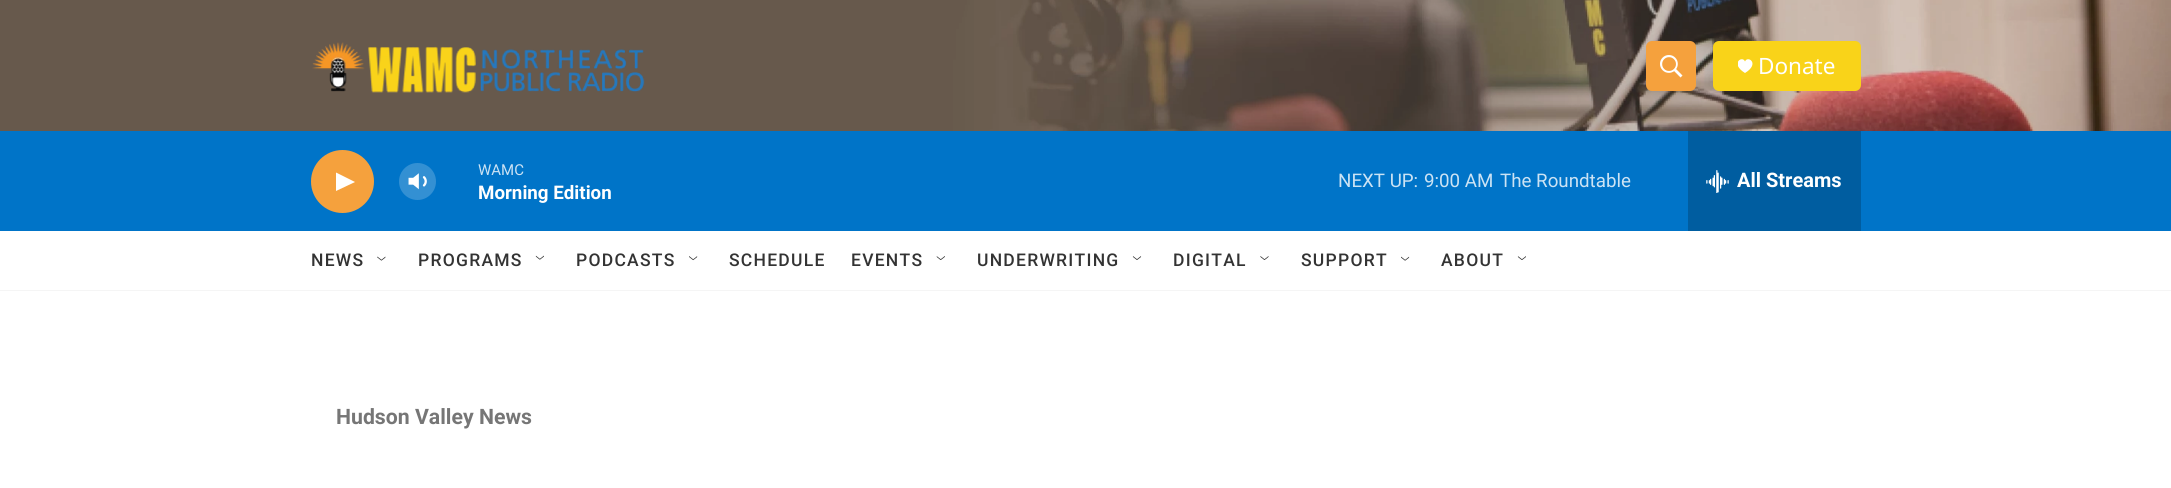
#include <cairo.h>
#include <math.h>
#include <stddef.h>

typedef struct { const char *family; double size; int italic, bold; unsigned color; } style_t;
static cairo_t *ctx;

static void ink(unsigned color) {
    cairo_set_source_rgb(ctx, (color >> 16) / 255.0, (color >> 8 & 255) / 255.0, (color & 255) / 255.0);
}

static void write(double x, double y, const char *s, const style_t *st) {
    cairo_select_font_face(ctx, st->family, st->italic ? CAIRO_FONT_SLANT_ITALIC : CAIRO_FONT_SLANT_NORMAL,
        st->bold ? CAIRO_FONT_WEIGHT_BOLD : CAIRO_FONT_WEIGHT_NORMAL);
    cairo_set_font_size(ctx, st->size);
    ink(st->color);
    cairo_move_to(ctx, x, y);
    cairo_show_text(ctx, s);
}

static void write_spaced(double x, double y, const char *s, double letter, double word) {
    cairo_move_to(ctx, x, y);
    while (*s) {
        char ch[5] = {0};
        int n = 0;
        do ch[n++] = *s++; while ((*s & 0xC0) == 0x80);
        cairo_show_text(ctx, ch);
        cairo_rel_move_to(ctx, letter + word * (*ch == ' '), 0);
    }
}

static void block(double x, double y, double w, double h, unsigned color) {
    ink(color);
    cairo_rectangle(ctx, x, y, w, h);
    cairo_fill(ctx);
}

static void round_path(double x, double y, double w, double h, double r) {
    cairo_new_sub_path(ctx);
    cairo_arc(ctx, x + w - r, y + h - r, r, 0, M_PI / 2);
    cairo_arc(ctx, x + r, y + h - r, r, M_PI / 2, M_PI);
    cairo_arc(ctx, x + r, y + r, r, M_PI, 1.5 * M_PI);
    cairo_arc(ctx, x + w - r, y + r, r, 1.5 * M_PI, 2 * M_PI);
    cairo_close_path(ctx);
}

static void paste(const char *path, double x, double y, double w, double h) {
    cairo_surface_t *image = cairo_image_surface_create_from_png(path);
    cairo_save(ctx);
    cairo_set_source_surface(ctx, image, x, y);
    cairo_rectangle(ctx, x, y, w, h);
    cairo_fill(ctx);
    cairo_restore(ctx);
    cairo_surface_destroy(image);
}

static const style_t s1 = {"Noto Sans", 22.5, 0, 0, 0xffffff};
static const style_t s2 = {"Roboto", 15, 0, 0, 0xcce3f4};
static const style_t s3 = {"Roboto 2", 18.75, 0, 1, 0xffffff};
static const style_t s4 = {"Roboto", 18.75, 0, 0, 0xcce3f4};
static const style_t s5 = {"Roboto 2", 20, 0, 1, 0xffffff};
static const style_t s6 = {"Roboto", 21.25, 0, 1, 0x767676};

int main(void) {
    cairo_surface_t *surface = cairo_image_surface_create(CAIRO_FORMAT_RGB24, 2171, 488);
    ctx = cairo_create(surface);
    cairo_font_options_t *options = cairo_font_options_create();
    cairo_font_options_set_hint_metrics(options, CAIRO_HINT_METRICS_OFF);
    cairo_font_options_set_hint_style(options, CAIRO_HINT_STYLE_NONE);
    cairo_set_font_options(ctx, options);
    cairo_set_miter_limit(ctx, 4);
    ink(0xffffff);
    cairo_paint(ctx);
    block(0, 290, 2171, 1, 0xf5f5f5);
    paste("pic1.png", 0, 0, 2171, 131);
    paste("pic2.png", 312, 42, 333, 51);
    ink(0xf5a13d);
    round_path(1646, 41, 50, 50, 6);
    cairo_fill(ctx);
    paste("pic3.png", 1660, 55, 23, 23);
    ink(0xf9d319);
    round_path(1713, 41, 148, 50, 6);
    cairo_fill(ctx);
    cairo_save(ctx);
    cairo_rectangle(ctx, 1738, 59, 15, 15);
    cairo_clip(ctx);
    ink(0xffffff);
    cairo_new_path(ctx);
    cairo_move_to(ctx, 1745, 61.5);
    cairo_curve_to(ctx, 1742.5, 55, 1729.5, 63.5, 1745, 73);
    cairo_curve_to(ctx, 1760.5, 63.5, 1747.5, 55, 1745, 61.5);
    cairo_close_path(ctx);
    cairo_fill(ctx);
    cairo_restore(ctx);
    write(1758, 74, "Donate", &s1);
    block(0, 131, 2171, 100, 0x0074c8);
    ink(0xf5a13d);
    cairo_new_path(ctx);
    cairo_arc(ctx, 342.5, 181.5, 31.5, 0, 2 * M_PI);
    cairo_fill(ctx);
    ink(0xffffff);
    cairo_new_path(ctx);
    cairo_move_to(ctx, 336, 172.5);
    cairo_line_to(ctx, 355, 182);
    cairo_line_to(ctx, 336, 191);
    cairo_close_path(ctx);
    cairo_fill(ctx);
    paste("pic4.png", 408, 173, 19, 17);
    cairo_set_source_rgba(ctx, 1, 1, 1, 0.2);
    cairo_arc(ctx, 417.5, 181.5, 18.5, 0, 2 * M_PI);
    cairo_fill(ctx);
    write(478, 175, "WAMC", &s2);
    write(478, 199, "Morning Edition", &s3);
    write(1338, 187, "NEXT UP:", &s4);
    write(1424, 187, "9:00 AM", &s4);
    write(1500, 187, "The Roundtable", &s4);
    block(1688, 131, 173, 100, 0x005da0);
    paste("pic5.png", 1706, 170, 23, 23);
    write(1737, 187, "All Streams", &s5);
    cairo_select_font_face(ctx, "Roboto Medium", CAIRO_FONT_SLANT_NORMAL, CAIRO_FONT_WEIGHT_NORMAL);
    cairo_set_font_size(ctx, 17.5);
    ink(0x333333);
    write_spaced(311, 266, "NEWS", 1.25, 0);
    paste("pic6.png", 377, 256, 9, 5);
    write_spaced(418, 266, "PROGRAMS", 1.25, 0);
    paste("pic7.png", 535, 255, 9, 5);
    write_spaced(576, 266, "PODCASTS", 1.25, 0);
    paste("pic8.png", 689, 256, 9, 5);
    write_spaced(729, 266, "SCHEDULE", 1.25, 0);
    write_spaced(851, 266, "EVENTS", 1.25, 0);
    paste("pic9.png", 936, 256, 9, 4);
    write_spaced(977, 266, "UNDERWRITING", 1.25, 0);
    paste("pic10.png", 1132, 256, 10, 4);
    write_spaced(1173, 266, "DIGITAL", 1.25, 0);
    paste("pic11.png", 1260, 256, 9, 4);
    write_spaced(1301, 266, "SUPPORT", 1.25, 0);
    paste("pic12.png", 1401, 256, 9, 5);
    write_spaced(1441, 266, "ABOUT", 1.25, 0);
    paste("pic13.png", 1517, 256, 9, 4);
    write(336, 424, "Hudson Valley News", &s6);
    cairo_surface_write_to_png(surface, "screenshot.png");
    cairo_font_options_destroy(options);
    cairo_destroy(ctx);
    cairo_surface_destroy(surface);
    return 0;
}
